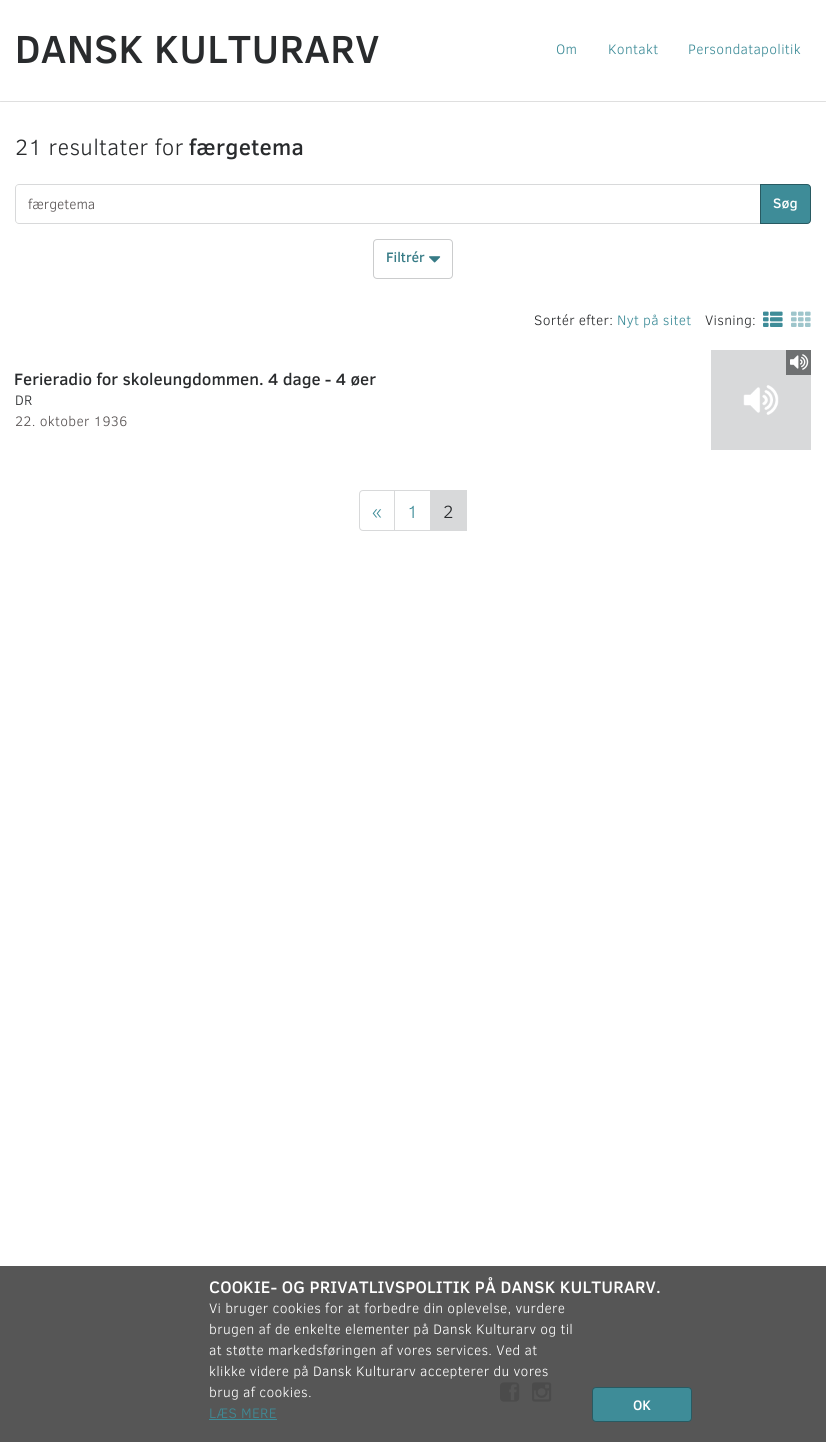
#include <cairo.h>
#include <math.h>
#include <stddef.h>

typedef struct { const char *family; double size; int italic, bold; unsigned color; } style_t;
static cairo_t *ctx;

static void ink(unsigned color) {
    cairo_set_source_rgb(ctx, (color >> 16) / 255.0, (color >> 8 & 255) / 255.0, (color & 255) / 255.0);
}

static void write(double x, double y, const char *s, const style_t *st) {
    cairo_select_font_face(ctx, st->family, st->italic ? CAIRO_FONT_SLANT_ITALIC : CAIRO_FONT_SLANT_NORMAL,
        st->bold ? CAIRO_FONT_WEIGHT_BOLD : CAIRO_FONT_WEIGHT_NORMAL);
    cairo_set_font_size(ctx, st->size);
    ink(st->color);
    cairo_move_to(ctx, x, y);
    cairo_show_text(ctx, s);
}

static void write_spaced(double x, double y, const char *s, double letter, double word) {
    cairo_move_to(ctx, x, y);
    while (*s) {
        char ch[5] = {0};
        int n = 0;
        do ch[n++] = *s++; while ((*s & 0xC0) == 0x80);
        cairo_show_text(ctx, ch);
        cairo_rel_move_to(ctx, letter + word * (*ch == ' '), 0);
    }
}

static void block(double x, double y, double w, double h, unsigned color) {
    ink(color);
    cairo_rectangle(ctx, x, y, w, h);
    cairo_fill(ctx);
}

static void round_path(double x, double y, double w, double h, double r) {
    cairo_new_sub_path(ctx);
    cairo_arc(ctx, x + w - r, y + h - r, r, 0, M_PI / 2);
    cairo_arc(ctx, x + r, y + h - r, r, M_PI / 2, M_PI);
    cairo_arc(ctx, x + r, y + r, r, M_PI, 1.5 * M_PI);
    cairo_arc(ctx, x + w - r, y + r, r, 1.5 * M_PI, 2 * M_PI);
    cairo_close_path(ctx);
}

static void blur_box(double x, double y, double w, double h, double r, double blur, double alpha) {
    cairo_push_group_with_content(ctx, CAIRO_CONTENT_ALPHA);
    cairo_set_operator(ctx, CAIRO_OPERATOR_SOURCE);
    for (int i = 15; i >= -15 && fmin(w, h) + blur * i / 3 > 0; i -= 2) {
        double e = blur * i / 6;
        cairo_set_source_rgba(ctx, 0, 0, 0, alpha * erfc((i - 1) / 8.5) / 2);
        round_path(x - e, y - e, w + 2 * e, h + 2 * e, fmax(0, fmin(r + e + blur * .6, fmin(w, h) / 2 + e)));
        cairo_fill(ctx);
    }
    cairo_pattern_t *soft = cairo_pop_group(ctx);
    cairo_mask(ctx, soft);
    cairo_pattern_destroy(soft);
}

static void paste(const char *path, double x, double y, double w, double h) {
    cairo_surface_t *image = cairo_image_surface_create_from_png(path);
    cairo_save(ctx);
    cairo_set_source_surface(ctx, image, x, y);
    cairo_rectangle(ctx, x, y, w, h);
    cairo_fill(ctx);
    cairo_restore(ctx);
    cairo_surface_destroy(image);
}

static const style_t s1 = {"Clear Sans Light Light", 14, 0, 0, 0x575252};
static const style_t s2 = {"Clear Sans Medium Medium", 14, 0, 0, 0xffffff};
static const style_t s3 = {"Clear Sans Medium Medium", 14, 0, 0, 0x377b86};
static const style_t s4 = {"Clear Sans Medium Medium", 16.8, 0, 0, 0x292b2d};

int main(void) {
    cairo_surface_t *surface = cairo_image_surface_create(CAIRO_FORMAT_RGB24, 826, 1442);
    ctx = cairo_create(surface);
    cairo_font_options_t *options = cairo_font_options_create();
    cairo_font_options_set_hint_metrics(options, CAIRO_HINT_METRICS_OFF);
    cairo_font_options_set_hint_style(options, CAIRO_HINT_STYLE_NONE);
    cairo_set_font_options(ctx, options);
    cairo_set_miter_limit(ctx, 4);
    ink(0xffffff);
    cairo_paint(ctx);
    block(0, 1266, 826, 176, 0x565656);
    cairo_save(ctx);
    cairo_rectangle(ctx, 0, 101, 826, 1);
    cairo_clip(ctx);
    ink(0x000000);
    blur_box(0, 0, 826, 101, 0, 0.5, 0.5);
    cairo_restore(ctx);
    cairo_select_font_face(ctx, "Clear Sans Medium Medium", CAIRO_FONT_SLANT_NORMAL, CAIRO_FONT_WEIGHT_NORMAL);
    cairo_set_font_size(ctx, 40);
    ink(0x292b2d);
    write_spaced(15, 63, "DANSK KULTURARV", 0.28, 0);
    cairo_select_font_face(ctx, "Clear Sans Light Light", CAIRO_FONT_SLANT_NORMAL, CAIRO_FONT_WEIGHT_NORMAL);
    cairo_set_font_size(ctx, 14);
    ink(0x3e8c98);
    write_spaced(556, 54, "Om", 0.28, 0);
    write_spaced(608, 54, "Kontakt", 0.28, 0);
    write_spaced(688, 54, "Persondatapolitik", 0.28, 0);
    cairo_set_font_size(ctx, 22.5);
    ink(0x292b2d);
    write_spaced(15, 155, "21 resultater for", 0.28, 0);
    cairo_select_font_face(ctx, "Clear Sans Medium Medium", CAIRO_FONT_SLANT_NORMAL, CAIRO_FONT_WEIGHT_NORMAL);
    write_spaced(189, 155, "færgetema", 0.28, 0);
    ink(0xd8d9da);
    cairo_set_fill_rule(ctx, CAIRO_FILL_RULE_EVEN_ODD);
    cairo_new_path(ctx);
    cairo_move_to(ctx, 19, 184);
    cairo_line_to(ctx, 760, 184);
    cairo_line_to(ctx, 760, 224);
    cairo_line_to(ctx, 19, 224);
    cairo_curve_to(ctx, 17, 224, 15, 222, 15, 220);
    cairo_line_to(ctx, 15, 188);
    cairo_curve_to(ctx, 15, 186, 17, 184, 19, 184);
    cairo_close_path(ctx);
    cairo_move_to(ctx, 19, 185);
    cairo_line_to(ctx, 760, 185);
    cairo_line_to(ctx, 760, 223);
    cairo_line_to(ctx, 19, 223);
    cairo_curve_to(ctx, 17, 223, 16, 222, 16, 220);
    cairo_line_to(ctx, 16, 188);
    cairo_curve_to(ctx, 16, 186, 17, 185, 19, 185);
    cairo_close_path(ctx);
    cairo_fill(ctx);
    write(28, 209, "færgetema", &s1);
    ink(0x3e8c98);
    cairo_new_path(ctx);
    cairo_move_to(ctx, 760.5, 184.5);
    cairo_line_to(ctx, 807, 184.5);
    cairo_curve_to(ctx, 809, 184.5, 810.5, 186, 810.5, 188);
    cairo_line_to(ctx, 810.5, 220);
    cairo_curve_to(ctx, 810.5, 222, 809, 223.5, 807, 223.5);
    cairo_line_to(ctx, 760.5, 223.5);
    cairo_close_path(ctx);
    cairo_fill_preserve(ctx);
    ink(0x285a62);
    cairo_set_line_width(ctx, 1);
    cairo_stroke(ctx);
    write(773, 208, "Søg", &s2);
    round_path(373.5, 239.5, 79, 39, 3.5);
    ink(0xcbcccd);
    cairo_stroke(ctx);
    write(386, 262, "Filtrér", &s3);
    paste("pic1.png", 429, 256, 12, 7);
    cairo_select_font_face(ctx, "Clear Sans Light Light", CAIRO_FONT_SLANT_NORMAL, CAIRO_FONT_WEIGHT_NORMAL);
    ink(0x292b2d);
    write_spaced(534, 325, "Sortér efter:", 0.28, 0);
    ink(0x3e8c98);
    write_spaced(617, 325, "Nyt på sitet", 0.28, 0);
    ink(0x292b2d);
    write_spaced(705, 325, "Visning:", 0.28, 0);
    paste("pic2.png", 763, 311, 20, 16);
    paste("pic3.png", 791, 311, 20, 16);
    write(14, 385, "Ferieradio for skoleungdommen. 4 dage - 4 øer", &s4);
    cairo_select_font_face(ctx, "Clear Sans Light Light", CAIRO_FONT_SLANT_NORMAL, CAIRO_FONT_WEIGHT_NORMAL);
    cairo_set_font_size(ctx, 14);
    write_spaced(15, 405, "DR", 0.28, 0);
    ink(0x575252);
    write_spaced(15, 426, "22. oktober 1936", 0.28, 0);
    block(711, 350, 100, 100, 0xd8d9da);
    paste("pic4.png", 743, 385, 36, 30);
    block(786, 350, 25, 25, 0x6f7172);
    paste("pic5.png", 790, 354, 19, 16);
    cairo_new_path(ctx);
    cairo_move_to(ctx, 363, 490.5);
    cairo_line_to(ctx, 394.5, 490.5);
    cairo_line_to(ctx, 394.5, 530.5);
    cairo_line_to(ctx, 363, 530.5);
    cairo_curve_to(ctx, 361, 530.5, 359.5, 529, 359.5, 527);
    cairo_line_to(ctx, 359.5, 494);
    cairo_curve_to(ctx, 359.5, 492, 361, 490.5, 363, 490.5);
    cairo_close_path(ctx);
    ink(0xd8d9da);
    cairo_stroke(ctx);
    cairo_set_font_size(ctx, 18);
    ink(0x3e8c98);
    write_spaced(372, 518, "«", 0.28, 0);
    cairo_rectangle(ctx, 394.5, 490.5, 36, 40);
    ink(0xd8d9da);
    cairo_stroke(ctx);
    ink(0x3e8c98);
    write_spaced(407, 518, "1", 0.28, 0);
    block(431, 490, 36, 41, 0xd8d9da);
    ink(0x292b2d);
    write_spaced(443, 518, "2", 0.28, 0);
    cairo_select_font_face(ctx, "Clear Sans Medium Medium", CAIRO_FONT_SLANT_NORMAL, CAIRO_FONT_WEIGHT_NORMAL);
    cairo_set_font_size(ctx, 17);
    ink(0xffffff);
    write_spaced(209, 1293, "COOKIE- OG PRIVATLIVSPOLITIK PÅ DANSK KULTURARV.", 0.15, 0);
    cairo_select_font_face(ctx, "Clear Sans Light Light", CAIRO_FONT_SLANT_NORMAL, CAIRO_FONT_WEIGHT_NORMAL);
    cairo_set_font_size(ctx, 14);
    write_spaced(209, 1313, "Vi bruger cookies for at forbedre din oplevelse, vurdere", 0.28, 0);
    write_spaced(209, 1334, "brugen af de enkelte elementer på Dansk Kulturarv og til", 0.28, 0);
    write_spaced(209, 1355, "at støtte markedsføringen af vores services. Ved at", 0.28, 0);
    write_spaced(209, 1376, "klikke videre på Dansk Kulturarv accepterer du vores", 0.28, 0);
    write_spaced(209, 1397, "brug af cookies.", 0.28, 0);
    ink(0x3e8c98);
    write_spaced(209, 1418, "LÆS MERE", 0.28, 0);
    block(209, 1419, 68, 1, 0x3e8c98);
    round_path(592.5, 1387.5, 99, 34, 3.5);
    cairo_fill_preserve(ctx);
    ink(0x285a62);
    cairo_stroke(ctx);
    write(633, 1410, "OK", &s2);
    paste("pic6.png", 500, 1382, 20, 20);
    paste("pic7.png", 532, 1382, 20, 20);
    cairo_surface_write_to_png(surface, "screenshot.png");
    cairo_font_options_destroy(options);
    cairo_destroy(ctx);
    cairo_surface_destroy(surface);
    return 0;
}
